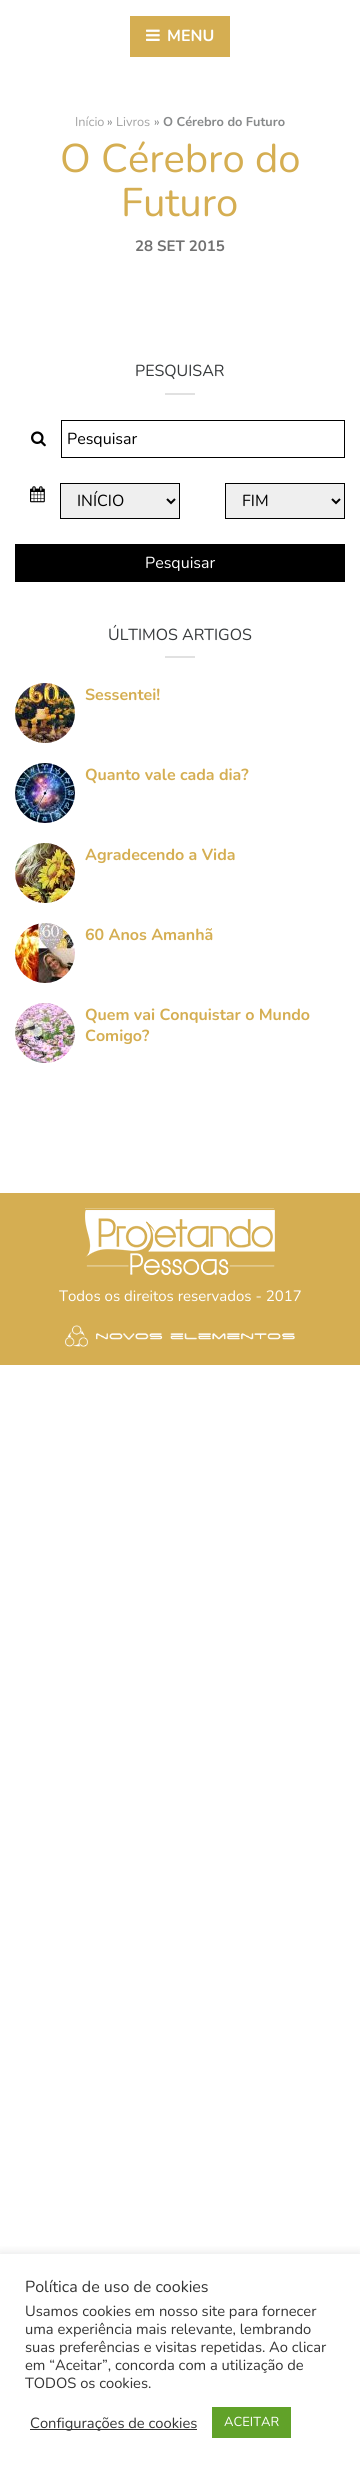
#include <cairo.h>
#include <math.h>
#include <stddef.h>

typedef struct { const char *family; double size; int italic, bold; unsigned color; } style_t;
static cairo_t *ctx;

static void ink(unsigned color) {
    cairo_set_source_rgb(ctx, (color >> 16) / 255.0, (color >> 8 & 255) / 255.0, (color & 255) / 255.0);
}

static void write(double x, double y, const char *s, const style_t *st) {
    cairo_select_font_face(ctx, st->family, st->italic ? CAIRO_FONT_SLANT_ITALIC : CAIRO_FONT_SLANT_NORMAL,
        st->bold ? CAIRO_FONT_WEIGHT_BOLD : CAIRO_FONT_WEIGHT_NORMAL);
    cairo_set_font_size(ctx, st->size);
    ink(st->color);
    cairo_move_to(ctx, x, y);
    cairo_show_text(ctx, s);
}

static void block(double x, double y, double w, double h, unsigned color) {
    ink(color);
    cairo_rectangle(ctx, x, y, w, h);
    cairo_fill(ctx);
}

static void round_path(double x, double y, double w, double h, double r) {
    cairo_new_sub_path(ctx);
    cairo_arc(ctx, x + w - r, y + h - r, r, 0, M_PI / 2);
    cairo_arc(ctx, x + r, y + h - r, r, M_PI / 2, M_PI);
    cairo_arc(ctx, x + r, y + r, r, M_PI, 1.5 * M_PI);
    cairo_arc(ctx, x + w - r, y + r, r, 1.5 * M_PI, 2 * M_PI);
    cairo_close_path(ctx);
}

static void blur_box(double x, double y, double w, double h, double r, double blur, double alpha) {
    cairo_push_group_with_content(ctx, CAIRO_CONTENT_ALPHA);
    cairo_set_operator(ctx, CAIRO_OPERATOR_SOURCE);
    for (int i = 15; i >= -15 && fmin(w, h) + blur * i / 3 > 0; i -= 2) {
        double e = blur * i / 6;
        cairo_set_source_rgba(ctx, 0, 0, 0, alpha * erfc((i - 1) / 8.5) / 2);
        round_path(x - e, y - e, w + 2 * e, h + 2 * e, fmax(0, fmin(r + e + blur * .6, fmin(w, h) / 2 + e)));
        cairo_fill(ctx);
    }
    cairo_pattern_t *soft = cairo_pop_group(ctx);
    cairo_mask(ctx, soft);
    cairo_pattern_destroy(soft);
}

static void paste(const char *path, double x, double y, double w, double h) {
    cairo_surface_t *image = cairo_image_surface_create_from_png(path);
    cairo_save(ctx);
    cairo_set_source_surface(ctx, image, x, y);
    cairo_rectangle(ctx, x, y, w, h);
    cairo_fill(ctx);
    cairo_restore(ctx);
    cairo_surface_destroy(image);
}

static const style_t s1 = {"Nunito", 16, 0, 1, 0xffffff};
static const style_t s2 = {"Nunito", 12.75, 0, 0, 0xa3a3a3};
static const style_t s3 = {"Nunito", 12.75, 0, 0, 0x87898a};
static const style_t s4 = {"Nunito", 12.75, 0, 1, 0x87898a};
static const style_t s5 = {"Nunito", 40, 0, 0, 0xd5ae52};
static const style_t s6 = {"Nunito", 15, 0, 1, 0x717171};
static const style_t s7 = {"Nunito", 16, 0, 0, 0x373a3c};
static const style_t s8 = {"Nunito", 16, 0, 0, 0x000000};
static const style_t s9 = {"Nunito", 16, 0, 0, 0xffffff};
static const style_t s10 = {"Nunito", 16, 0, 1, 0xd5ae52};
static const style_t s11 = {"Nunito", 15, 0, 0, 0xffffff};
static const style_t s12 = {"Nunito", 16, 0, 0, 0x333333};
static const style_t s13 = {"Nunito", 14.7, 0, 0, 0x333333};
static const style_t s14 = {"Nunito", 13, 0, 0, 0xffffff};

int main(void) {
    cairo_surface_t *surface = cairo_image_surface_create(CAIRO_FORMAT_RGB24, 360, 2468);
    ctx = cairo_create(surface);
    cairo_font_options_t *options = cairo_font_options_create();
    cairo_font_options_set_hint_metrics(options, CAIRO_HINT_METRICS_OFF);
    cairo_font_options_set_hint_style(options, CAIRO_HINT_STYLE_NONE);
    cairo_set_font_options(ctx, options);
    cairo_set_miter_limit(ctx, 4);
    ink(0xffffff);
    cairo_paint(ctx);
    block(130, 16, 100, 41, 0xd5ae52);
    paste("pic1.png", 146, 29, 14, 12);
    write(167, 41, "MENU", &s1);
    write(75, 126, "Início", &s2);
    write(107, 126, "»", &s3);
    write(116, 126, "Livros", &s2);
    write(154, 126, "»", &s3);
    write(163, 126, "O Cérebro do Futuro", &s4);
    write(60, 172, "O Cérebro do", &s5);
    write(121, 216, "Futuro", &s5);
    write(135, 251, "28 SET 2015", &s6);
    write(135, 376, "PESQUISAR", &s7);
    block(165, 393, 30, 2, 0xe1e1e1);
    paste("pic2.png", 31, 431, 15, 16);
    cairo_rectangle(ctx, 61.5, 420.5, 283, 37);
    ink(0x000000);
    cairo_set_line_width(ctx, 1);
    cairo_stroke(ctx);
    write(67, 444, "Pesquisar", &s8);
    paste("pic3.png", 30, 486, 15, 17);
    ink(0xefefef);
    cairo_rectangle(ctx, 60.5, 483.5, 119, 35);
    cairo_fill_preserve(ctx);
    ink(0x000000);
    cairo_stroke(ctx);
    cairo_new_path(ctx);
    cairo_move_to(ctx, 167, 499);
    cairo_line_to(ctx, 171, 503);
    cairo_line_to(ctx, 175, 499);
    cairo_set_line_width(ctx, 2);
    cairo_stroke(ctx);
    write(77, 506, "INÍCIO", &s8);
    ink(0xefefef);
    cairo_rectangle(ctx, 225.5, 483.5, 119, 35);
    cairo_fill_preserve(ctx);
    ink(0x000000);
    cairo_set_line_width(ctx, 1);
    cairo_stroke(ctx);
    cairo_new_path(ctx);
    cairo_move_to(ctx, 332, 499);
    cairo_line_to(ctx, 336, 503);
    cairo_line_to(ctx, 340, 499);
    cairo_set_line_width(ctx, 2);
    cairo_stroke(ctx);
    write(242, 506, "FIM", &s8);
    block(15, 544, 330, 38, 0x000000);
    write(145, 568, "Pesquisar", &s9);
    write(108, 640, "ÚLTIMOS ARTIGOS", &s7);
    block(165, 656, 30, 2, 0xe1e1e1);
    paste("pic4.png", 15, 683, 60, 60);
    write(85, 700, "Sessentei!", &s10);
    paste("pic5.png", 15, 763, 60, 60);
    write(85, 780, "Quanto vale cada dia?", &s10);
    paste("pic6.png", 15, 843, 60, 60);
    write(85, 860, "Agradecendo a Vida", &s10);
    paste("pic7.png", 15, 923, 60, 60);
    write(85, 940, "60 Anos Amanhã", &s10);
    paste("pic8.png", 15, 1003, 60, 60);
    write(85, 1020, "Quem vai Conquistar o Mundo", &s10);
    write(85, 1041, "Comigo?", &s10);
    block(0, 1193, 360, 172, 0xd5ae52);
    paste("pic9.png", 85, 1208, 190, 67);
    write(59, 1301, "Todos os direitos reservados - 2017", &s11);
    paste("pic10.png", 65, 1325, 230, 22);
    cairo_save(ctx);
    cairo_rectangle(ctx, 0, 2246, 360, 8);
    cairo_clip(ctx);
    ink(0xacabab);
    blur_box(0, 2253, 360, 214, 0, 5, 0.3);
    cairo_restore(ctx);
    write(25, 2292, "Política de uso de cookies", &s12);
    write(25, 2316, "Usamos cookies em nosso site para fornecer", &s13);
    write(25, 2334, "uma experiência mais relevante, lembrando", &s13);
    write(25, 2352, "suas preferências e visitas repetidas. Ao clicar", &s13);
    write(25, 2370, "em “Aceitar”, concorda com a utilização de", &s13);
    write(25, 2388, "TODOS os cookies.", &s13);
    block(30, 2429, 167, 1, 0x333333);
    write(30, 2428, "Configurações de cookies", &s13);
    block(212, 2407, 79, 31, 0x61a229);
    write(224, 2426, "ACEITAR", &s14);
    cairo_surface_write_to_png(surface, "screenshot.png");
    cairo_font_options_destroy(options);
    cairo_destroy(ctx);
    cairo_surface_destroy(surface);
    return 0;
}
